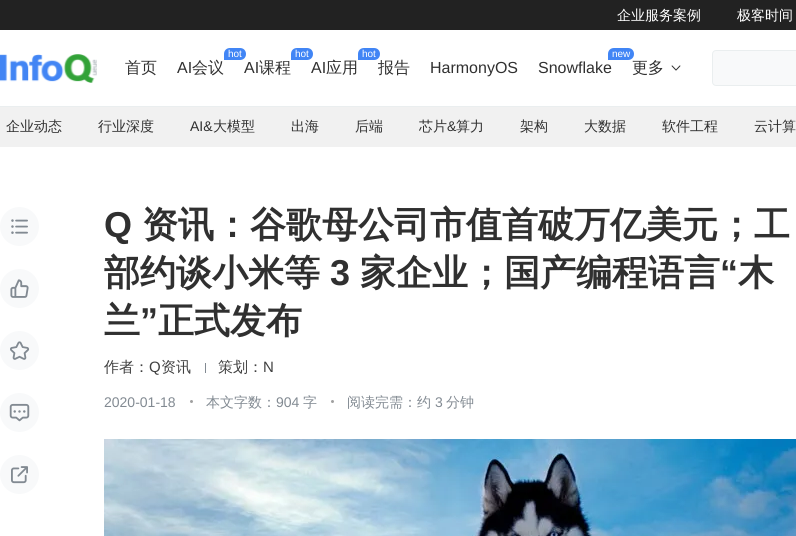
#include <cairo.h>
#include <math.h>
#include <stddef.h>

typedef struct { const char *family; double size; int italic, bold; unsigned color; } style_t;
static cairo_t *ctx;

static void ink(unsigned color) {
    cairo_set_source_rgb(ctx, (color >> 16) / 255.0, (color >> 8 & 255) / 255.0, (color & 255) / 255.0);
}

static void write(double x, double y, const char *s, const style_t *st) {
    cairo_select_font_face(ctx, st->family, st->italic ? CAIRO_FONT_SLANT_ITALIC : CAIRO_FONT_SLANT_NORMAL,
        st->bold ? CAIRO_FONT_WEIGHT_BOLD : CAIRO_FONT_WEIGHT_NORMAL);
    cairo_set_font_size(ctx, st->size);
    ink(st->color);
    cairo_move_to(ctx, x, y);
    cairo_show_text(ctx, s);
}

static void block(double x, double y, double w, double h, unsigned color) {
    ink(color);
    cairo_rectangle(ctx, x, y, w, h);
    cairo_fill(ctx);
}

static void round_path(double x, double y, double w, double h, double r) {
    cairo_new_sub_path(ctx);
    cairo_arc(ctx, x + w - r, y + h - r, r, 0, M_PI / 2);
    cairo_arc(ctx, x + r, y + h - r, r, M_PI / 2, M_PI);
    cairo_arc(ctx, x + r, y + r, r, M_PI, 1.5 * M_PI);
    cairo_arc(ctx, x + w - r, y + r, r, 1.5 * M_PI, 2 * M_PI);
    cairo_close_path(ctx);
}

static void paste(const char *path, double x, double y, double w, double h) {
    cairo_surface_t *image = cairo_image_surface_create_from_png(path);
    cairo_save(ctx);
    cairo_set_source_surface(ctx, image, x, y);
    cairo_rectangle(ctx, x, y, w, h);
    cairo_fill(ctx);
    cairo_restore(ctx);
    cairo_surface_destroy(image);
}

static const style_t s1 = {"WenQuanYi Zen Hei Medium", 14, 0, 0, 0xffffff};
static const style_t s2 = {"WenQuanYi Zen Hei Medium", 16, 0, 0, 0x303030};
static const style_t s3 = {"Liberation Sans", 10, 0, 0, 0xffffff};
static const style_t s4 = {"Liberation Sans", 16, 0, 0, 0x303030};
static const style_t s5 = {"WenQuanYi Zen Hei Medium", 14, 0, 0, 0x303030};
static const style_t s6 = {"Liberation Sans", 14, 0, 0, 0x303030};
static const style_t s7 = {"Liberation Sans", 36, 0, 1, 0x303030};
static const style_t s8 = {"WenQuanYi Zen Hei", 36, 0, 1, 0x303030};
static const style_t s9 = {"WenQuanYi Zen Hei Medium", 15, 0, 0, 0x404040};
static const style_t s10 = {"Liberation Sans", 15, 0, 0, 0x404040};
static const style_t s11 = {"Liberation Sans", 14, 0, 0, 0x828a92};
static const style_t s12 = {"WenQuanYi Zen Hei Medium", 14, 0, 0, 0x828a92};

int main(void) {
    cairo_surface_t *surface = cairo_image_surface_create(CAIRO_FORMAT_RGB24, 796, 536);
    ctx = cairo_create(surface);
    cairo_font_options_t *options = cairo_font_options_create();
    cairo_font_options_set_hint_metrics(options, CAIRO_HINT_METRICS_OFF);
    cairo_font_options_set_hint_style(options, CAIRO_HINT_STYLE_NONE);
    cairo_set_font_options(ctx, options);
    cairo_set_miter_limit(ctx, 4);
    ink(0xffffff);
    cairo_paint(ctx);
    block(0, 106, 796, 1, 0xeaeeef);
    block(0, 0, 796, 30, 0x222222);
    write(617, 20, "企业服务案例", &s1);
    write(737, 20, "极客时间", &s1);
    paste("pic1.png", 0, 54, 97, 29);
    write(125, 73, "首页", &s2);
    ink(0x4185f5);
    cairo_new_path(ctx);
    cairo_move_to(ctx, 230, 48);
    cairo_line_to(ctx, 240, 48);
    cairo_curve_to(ctx, 243.5, 48, 246, 50.5, 246, 54);
    cairo_curve_to(ctx, 246, 57.5, 243.5, 60, 240, 60);
    cairo_line_to(ctx, 224, 60);
    cairo_line_to(ctx, 224, 54);
    cairo_curve_to(ctx, 224, 50.5, 226.5, 48, 230, 48);
    cairo_close_path(ctx);
    cairo_fill(ctx);
    write(228, 57, "hot", &s3);
    write(177, 73, "AI", &s4);
    write(192, 73, "会议", &s2);
    ink(0x4185f5);
    cairo_new_path(ctx);
    cairo_move_to(ctx, 297, 48);
    cairo_line_to(ctx, 307, 48);
    cairo_curve_to(ctx, 310.5, 48, 313, 50.5, 313, 54);
    cairo_curve_to(ctx, 313, 57.5, 310.5, 60, 307, 60);
    cairo_line_to(ctx, 291, 60);
    cairo_line_to(ctx, 291, 54);
    cairo_curve_to(ctx, 291, 50.5, 293.5, 48, 297, 48);
    cairo_close_path(ctx);
    cairo_fill(ctx);
    write(295, 57, "hot", &s3);
    write(244, 73, "AI", &s4);
    write(259, 73, "课程", &s2);
    ink(0x4185f5);
    cairo_new_path(ctx);
    cairo_move_to(ctx, 364, 48);
    cairo_line_to(ctx, 374, 48);
    cairo_curve_to(ctx, 377.5, 48, 380, 50.5, 380, 54);
    cairo_curve_to(ctx, 380, 57.5, 377.5, 60, 374, 60);
    cairo_line_to(ctx, 358, 60);
    cairo_line_to(ctx, 358, 54);
    cairo_curve_to(ctx, 358, 50.5, 360.5, 48, 364, 48);
    cairo_close_path(ctx);
    cairo_fill(ctx);
    write(362, 57, "hot", &s3);
    write(311, 73, "AI", &s4);
    write(326, 73, "应用", &s2);
    write(378, 73, "报告", &s2);
    write(430, 73, "HarmonyOS", &s4);
    ink(0x4185f5);
    cairo_new_path(ctx);
    cairo_move_to(ctx, 614, 48);
    cairo_line_to(ctx, 628, 48);
    cairo_curve_to(ctx, 631.5, 48, 634, 50.5, 634, 54);
    cairo_curve_to(ctx, 634, 57.5, 631.5, 60, 628, 60);
    cairo_line_to(ctx, 608, 60);
    cairo_line_to(ctx, 608, 54);
    cairo_curve_to(ctx, 608, 50.5, 610.5, 48, 614, 48);
    cairo_close_path(ctx);
    cairo_fill(ctx);
    write(612, 57, "new", &s3);
    write(538, 73, "Snowflake", &s4);
    write(632, 73, "更多", &s2);
    paste("pic2.png", 671, 65, 10, 6);
    ink(0xf8f9fa);
    round_path(712.5, 50.5, 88, 35, 3.5);
    cairo_fill_preserve(ctx);
    ink(0xeaeeef);
    cairo_set_line_width(ctx, 1);
    cairo_stroke(ctx);
    block(0, 107, 796, 40, 0xf1f1f1);
    write(6, 131, "企业动态", &s5);
    write(98, 131, "行业深度", &s5);
    write(190, 131, "AI&", &s6);
    write(213, 131, "大模型", &s5);
    write(291, 131, "出海", &s5);
    write(355, 131, "后端", &s5);
    write(419, 131, "芯片", &s5);
    write(447, 131, "&", &s6);
    write(456, 131, "算力", &s5);
    write(520, 131, "架构", &s5);
    write(584, 131, "大数据", &s5);
    write(662, 131, "软件工程", &s5);
    write(754, 131, "云计算", &s5);
    ink(0xf8f9fa);
    cairo_new_path(ctx);
    cairo_arc(ctx, 19.5, 226.5, 19.5, 0, 2 * M_PI);
    cairo_fill(ctx);
    paste("pic3.png", 11, 219, 17, 15);
    cairo_arc(ctx, 19.5, 288.5, 19.5, 0, 2 * M_PI);
    cairo_fill(ctx);
    paste("pic4.png", 10, 279, 19, 19);
    cairo_arc(ctx, 19.5, 350.5, 19.5, 0, 2 * M_PI);
    cairo_fill(ctx);
    paste("pic5.png", 10, 341, 20, 19);
    cairo_arc(ctx, 19.5, 412.5, 19.5, 0, 2 * M_PI);
    cairo_fill(ctx);
    paste("pic6.png", 9, 403, 21, 19);
    cairo_arc(ctx, 19.5, 474.5, 19.5, 0, 2 * M_PI);
    cairo_fill(ctx);
    paste("pic7.png", 11, 466, 17, 18);
    write(104, 237, "Q", &s7);
    write(142, 237, "资讯：谷歌母公司市值首破万亿美元；工", &s8);
    write(104, 285, "部约谈小米等", &s8);
    write(330, 285, "3", &s7);
    write(360, 285, "家企业；国产编程语言", &s8);
    write(720, 285, "“", &s7);
    write(738, 285, "木", &s8);
    write(104, 333, "兰", &s8);
    write(140, 333, "”", &s7);
    write(158, 333, "正式发布", &s8);
    write(104, 372, "作者：", &s9);
    write(149, 372, "Q", &s10);
    write(161, 372, "资讯", &s9);
    block(205, 363, 1, 10, 0x828a92);
    write(218, 372, "策划：", &s9);
    write(263, 372, "N", &s10);
    write(104, 407, "2020-01-18", &s11);
    ink(0xa0a0a0);
    cairo_new_path(ctx);
    cairo_arc(ctx, 191.5, 401.5, 1.5, 0, 2 * M_PI);
    cairo_fill(ctx);
    write(206, 407, "本文字数：", &s12);
    write(276, 407, "904", &s11);
    write(303, 407, "字", &s12);
    ink(0xa0a0a0);
    cairo_new_path(ctx);
    cairo_arc(ctx, 332.5, 401.5, 1.5, 0, 2 * M_PI);
    cairo_fill(ctx);
    write(347, 407, "阅读完需：约", &s12);
    write(435, 407, "3", &s11);
    write(446, 407, "分钟", &s12);
    paste("pic8.png", 104, 439, 692, 97);
    cairo_surface_write_to_png(surface, "screenshot.png");
    cairo_font_options_destroy(options);
    cairo_destroy(ctx);
    cairo_surface_destroy(surface);
    return 0;
}
